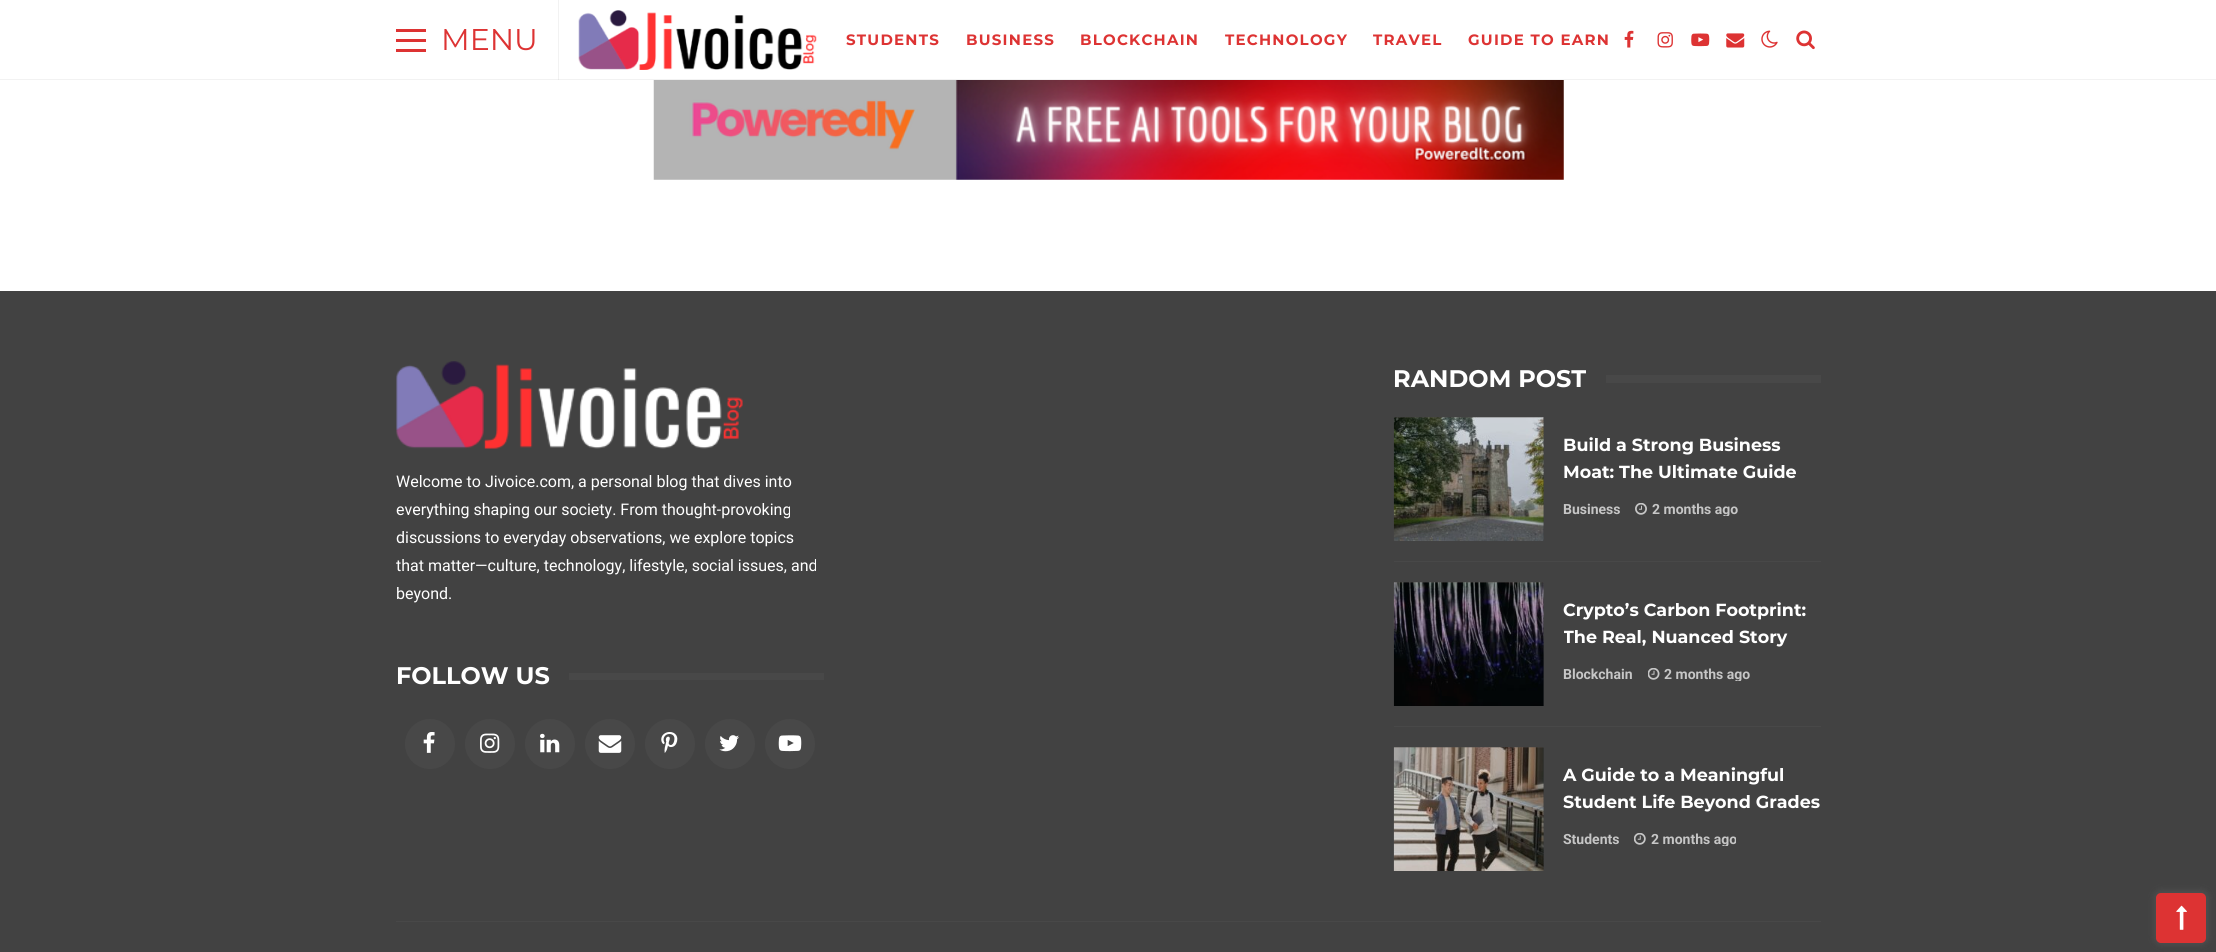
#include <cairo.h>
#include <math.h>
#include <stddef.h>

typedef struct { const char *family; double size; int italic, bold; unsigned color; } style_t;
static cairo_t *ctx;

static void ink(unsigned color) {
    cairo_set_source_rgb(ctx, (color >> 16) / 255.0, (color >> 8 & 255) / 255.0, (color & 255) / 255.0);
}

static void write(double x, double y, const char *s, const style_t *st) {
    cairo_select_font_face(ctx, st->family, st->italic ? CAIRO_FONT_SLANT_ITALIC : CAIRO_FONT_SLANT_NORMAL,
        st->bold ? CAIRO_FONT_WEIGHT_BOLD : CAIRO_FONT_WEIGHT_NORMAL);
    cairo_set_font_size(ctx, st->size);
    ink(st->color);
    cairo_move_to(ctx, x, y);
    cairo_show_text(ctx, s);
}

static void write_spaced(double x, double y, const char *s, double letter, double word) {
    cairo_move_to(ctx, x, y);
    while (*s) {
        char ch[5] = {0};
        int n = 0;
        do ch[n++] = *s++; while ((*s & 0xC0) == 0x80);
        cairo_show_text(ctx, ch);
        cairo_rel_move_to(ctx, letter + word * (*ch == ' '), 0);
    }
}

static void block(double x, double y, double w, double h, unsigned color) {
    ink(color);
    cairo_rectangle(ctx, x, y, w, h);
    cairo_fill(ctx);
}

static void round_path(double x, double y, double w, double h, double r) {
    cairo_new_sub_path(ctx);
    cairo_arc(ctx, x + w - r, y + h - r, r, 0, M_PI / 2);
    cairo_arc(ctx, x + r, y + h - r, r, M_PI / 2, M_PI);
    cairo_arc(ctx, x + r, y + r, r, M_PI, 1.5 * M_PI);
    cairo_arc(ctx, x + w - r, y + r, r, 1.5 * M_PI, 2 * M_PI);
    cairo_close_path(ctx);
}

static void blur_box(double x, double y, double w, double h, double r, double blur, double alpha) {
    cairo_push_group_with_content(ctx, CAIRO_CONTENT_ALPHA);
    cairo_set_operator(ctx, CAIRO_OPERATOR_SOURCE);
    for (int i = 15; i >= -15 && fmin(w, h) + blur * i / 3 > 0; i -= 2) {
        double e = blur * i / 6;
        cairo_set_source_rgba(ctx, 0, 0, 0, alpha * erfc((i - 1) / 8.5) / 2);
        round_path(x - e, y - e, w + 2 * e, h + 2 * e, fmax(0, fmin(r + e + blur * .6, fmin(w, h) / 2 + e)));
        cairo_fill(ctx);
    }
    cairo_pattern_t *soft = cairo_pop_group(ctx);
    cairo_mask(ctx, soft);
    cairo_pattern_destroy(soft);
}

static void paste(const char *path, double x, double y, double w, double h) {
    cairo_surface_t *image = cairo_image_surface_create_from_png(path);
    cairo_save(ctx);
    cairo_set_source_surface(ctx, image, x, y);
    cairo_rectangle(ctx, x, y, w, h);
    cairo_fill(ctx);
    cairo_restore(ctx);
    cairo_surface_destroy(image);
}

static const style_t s1 = {"Montserrat", 30, 0, 0, 0xdd3333};
static const style_t s2 = {"Roboto", 16, 0, 0, 0xffffff};
static const style_t s3 = {"Montserrat", 24, 0, 1, 0xffffff};
static const style_t s4 = {"Montserrat", 17.5, 0, 1, 0xffffff};
static const style_t s5 = {"Roboto", 14, 0, 1, 0xc6c6c6};

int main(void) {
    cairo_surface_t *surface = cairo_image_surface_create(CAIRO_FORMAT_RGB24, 2216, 952);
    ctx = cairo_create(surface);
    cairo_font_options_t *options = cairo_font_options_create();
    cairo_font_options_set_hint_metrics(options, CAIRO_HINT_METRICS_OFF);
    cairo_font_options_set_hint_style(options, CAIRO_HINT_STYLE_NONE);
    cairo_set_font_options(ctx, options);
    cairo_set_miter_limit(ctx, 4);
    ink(0xffffff);
    cairo_paint(ctx);
    block(558, 0, 1, 80, 0xf2f2f2);
    block(0, 79, 2216, 1, 0xf2f2f2);
    block(558, 79, 1, 1, 0xe7e7e7);
    block(396, 39, 30, 3, 0xdd3333);
    block(396, 29, 30, 3, 0xdd3333);
    block(396, 49, 30, 3, 0xdd3333);
    write(441, 50, "MENU", &s1);
    paste("pic1.png", 578, 10, 239, 60);
    cairo_select_font_face(ctx, "Montserrat", CAIRO_FONT_SLANT_NORMAL, CAIRO_FONT_WEIGHT_BOLD);
    cairo_set_font_size(ctx, 15);
    write_spaced(846, 45, "STUDENTS", 1.25, 0);
    write_spaced(966, 45, "BUSINESS", 1.25, 0);
    write_spaced(1080, 45, "BLOCKCHAIN", 1.25, 0);
    write_spaced(1225, 45, "TECHNOLOGY", 1.25, 0);
    write_spaced(1373, 45, "TRAVEL", 1.25, 0);
    write_spaced(1468, 45, "GUIDE TO EARN", 1.25, 0);
    paste("pic2.png", 1624, 30, 10, 18);
    paste("pic3.png", 1657, 32, 16, 16);
    paste("pic4.png", 1691, 33, 19, 14);
    paste("pic5.png", 1726, 33, 19, 15);
    paste("pic6.png", 1761, 30, 17, 18);
    paste("pic7.png", 1796, 30, 19, 20);
    paste("pic8.png", 653, 80, 911, 100);
    block(0, 291, 2216, 661, 0x424242);
    block(1543, 748, 1, 123, 0x393c3d);
    block(1543, 583, 1, 123, 0x393c3d);
    block(1543, 418, 1, 123, 0x393c3d);
    paste("pic9.png", 396, 361, 347, 88);
    write(396, 487, "Welcome to Jivoice.com, a personal blog that dives into", &s2);
    write(396, 515, "everything shaping our society. From thought-provoking", &s2);
    write(396, 543, "discussions to everyday observations, we explore topics", &s2);
    write(396, 571, "that matter—culture, technology, lifestyle, social issues, and", &s2);
    write(396, 599, "beyond.", &s2);
    write(396, 684, "FOLLOW US", &s3);
    block(569, 673, 255, 7, 0x484848);
    cairo_new_path(ctx);
    cairo_arc(ctx, 430, 744, 25, 0, 2 * M_PI);
    cairo_fill(ctx);
    paste("pic10.png", 423, 732, 12, 21);
    cairo_arc(ctx, 490, 744, 25, 0, 2 * M_PI);
    cairo_fill(ctx);
    paste("pic11.png", 480, 733, 20, 20);
    cairo_arc(ctx, 550, 744, 25, 0, 2 * M_PI);
    cairo_fill(ctx);
    paste("pic12.png", 540, 733, 20, 20);
    cairo_arc(ctx, 610, 744, 25, 0, 2 * M_PI);
    cairo_fill(ctx);
    paste("pic13.png", 598, 735, 24, 18);
    cairo_arc(ctx, 670, 744, 25, 0, 2 * M_PI);
    cairo_fill(ctx);
    paste("pic14.png", 661, 732, 17, 21);
    cairo_arc(ctx, 730, 744, 25, 0, 2 * M_PI);
    cairo_fill(ctx);
    paste("pic15.png", 719, 735, 20, 17);
    cairo_arc(ctx, 790, 744, 25, 0, 2 * M_PI);
    cairo_fill(ctx);
    paste("pic16.png", 778, 735, 24, 17);
    write(1393, 387, "RANDOM POST", &s3);
    block(1606, 375, 215, 8, 0x484848);
    block(1394, 561, 427, 1, 0x484848);
    paste("pic17.png", 1393, 417, 151, 124);
    write(1563, 451, "Build a Strong Business", &s4);
    write(1563, 478, "Moat: The Ultimate Guide", &s4);
    write(1563, 514, "Business", &s5);
    paste("pic18.png", 1635, 503, 12, 12);
    cairo_save(ctx);
    cairo_rectangle(ctx, 1635, 503, 103, 13);
    cairo_clip(ctx);
    write(1652, 514, "2 months ago", &s5);
    cairo_restore(ctx);
    block(1394, 726, 427, 1, 0x484848);
    paste("pic19.png", 1393, 582, 151, 124);
    write(1563, 616, "Crypto’s Carbon Footprint:", &s4);
    cairo_save(ctx);
    cairo_rectangle(ctx, 1564, 598, 257, 52);
    cairo_clip(ctx);
    write(1563, 643, "The Real, Nuanced Story", &s4);
    cairo_restore(ctx);
    write(1563, 679, "Blockchain", &s5);
    paste("pic20.png", 1648, 668, 12, 12);
    cairo_save(ctx);
    cairo_rectangle(ctx, 1648, 668, 102, 13);
    cairo_clip(ctx);
    write(1664, 679, "2 months ago", &s5);
    cairo_restore(ctx);
    paste("pic21.png", 1393, 747, 151, 124);
    write(1563, 781, "A Guide to a Meaningful", &s4);
    write(1563, 808, "Student Life Beyond Grades", &s4);
    write(1563, 844, "Students", &s5);
    paste("pic22.png", 1634, 833, 12, 12);
    cairo_save(ctx);
    cairo_rectangle(ctx, 1634, 833, 102, 13);
    cairo_clip(ctx);
    write(1651, 844, "2 months ago", &s5);
    cairo_restore(ctx);
    block(396, 921, 1425, 1, 0x484848);
    ink(0x808080);
    blur_box(2154, 890, 55, 55, 8, 3, 0.2);
    ink(0xdd3333);
    round_path(2156, 893, 50, 50, 5);
    cairo_fill(ctx);
    paste("pic23.png", 2176, 905, 11, 25);
    cairo_surface_write_to_png(surface, "screenshot.png");
    cairo_font_options_destroy(options);
    cairo_destroy(ctx);
    cairo_surface_destroy(surface);
    return 0;
}
